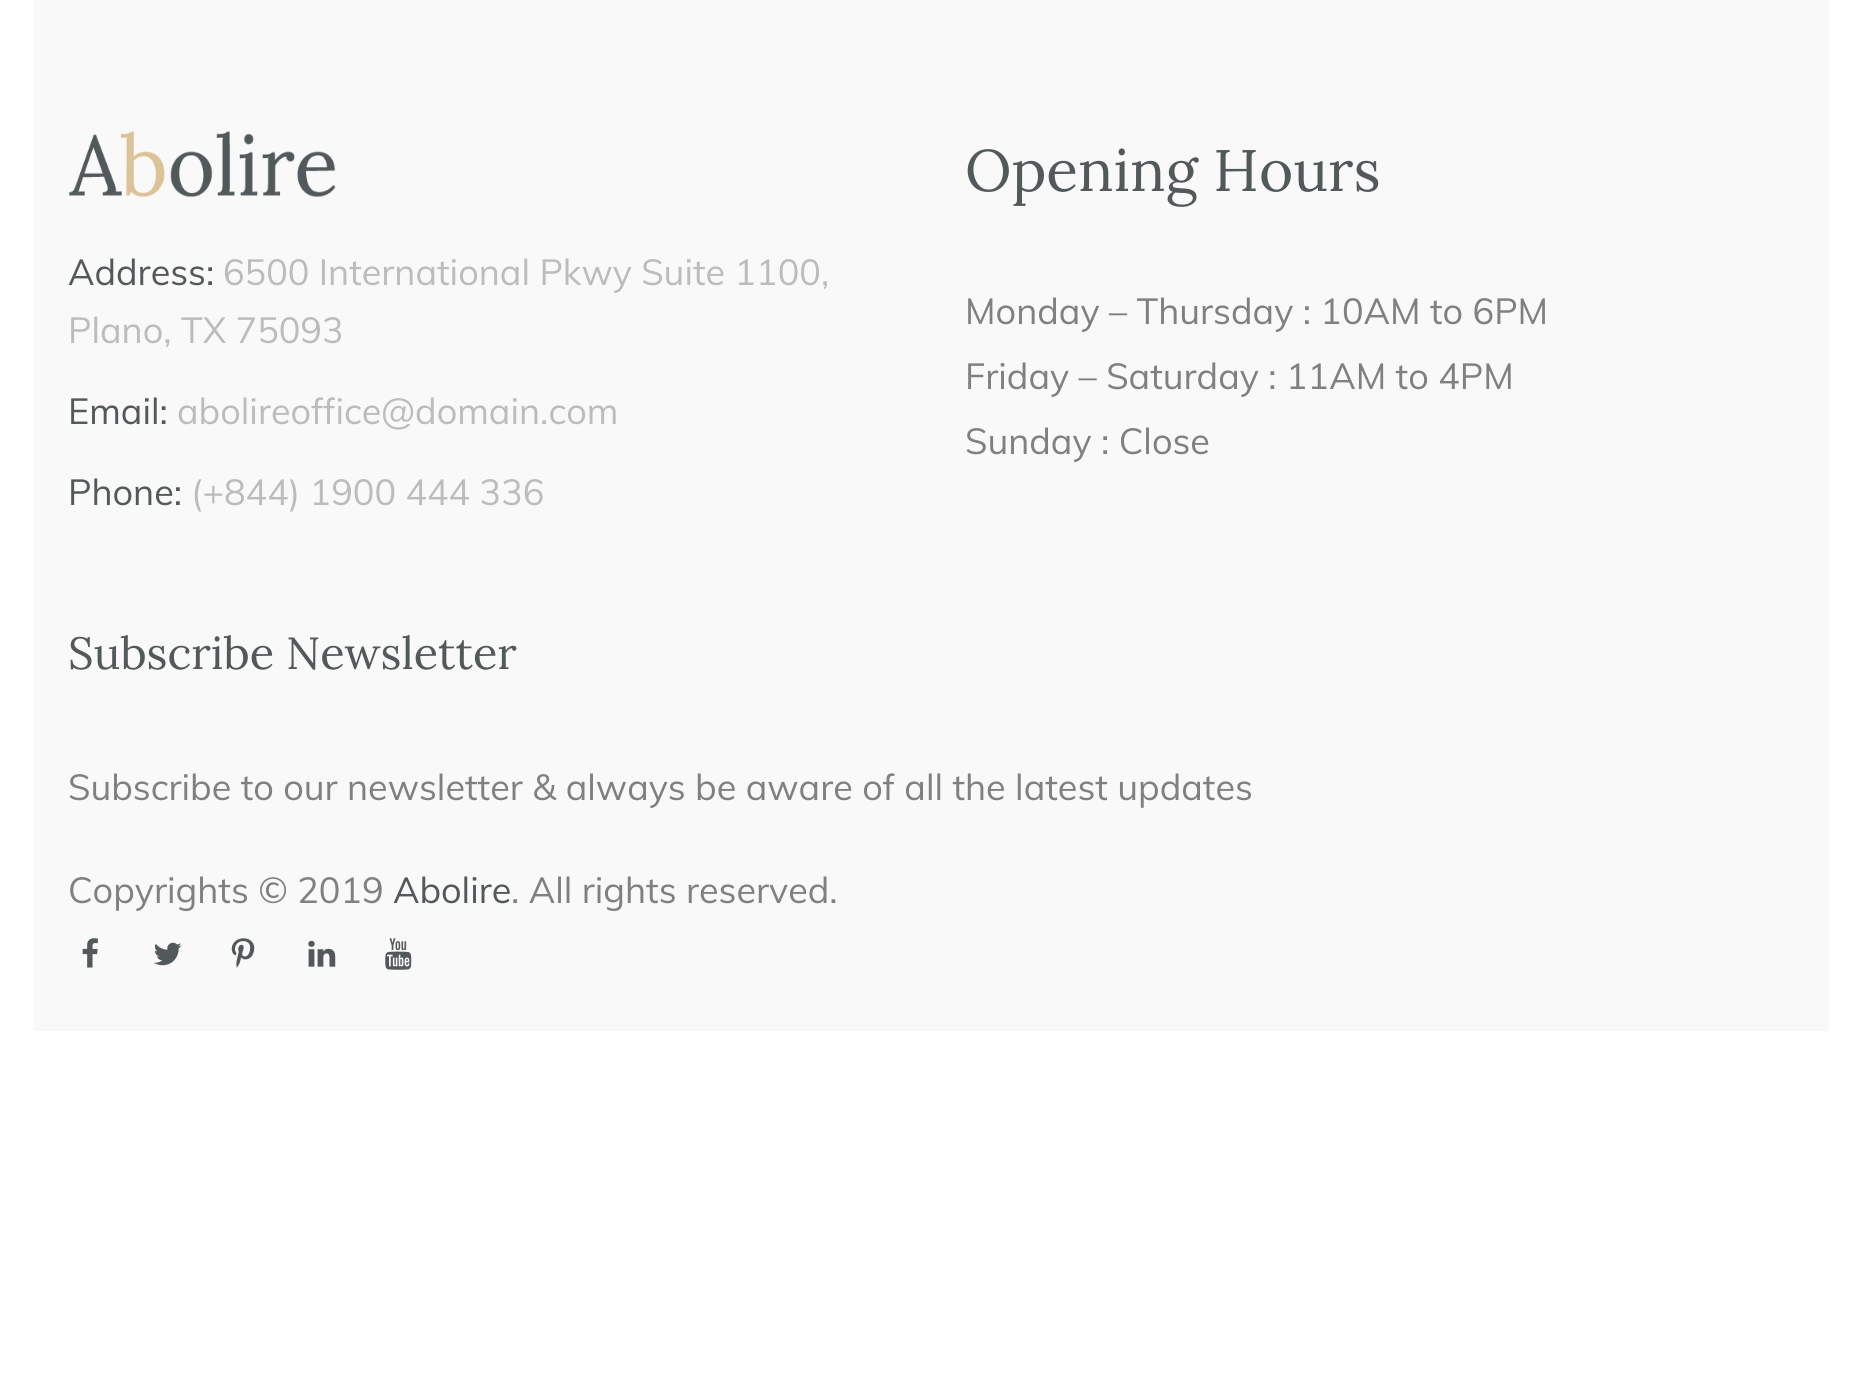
#include <cairo.h>
#include <math.h>
#include <stddef.h>

typedef struct { const char *family; double size; int italic, bold; unsigned color; } style_t;
static cairo_t *ctx;

static void ink(unsigned color) {
    cairo_set_source_rgb(ctx, (color >> 16) / 255.0, (color >> 8 & 255) / 255.0, (color & 255) / 255.0);
}

static void write(double x, double y, const char *s, const style_t *st) {
    cairo_select_font_face(ctx, st->family, st->italic ? CAIRO_FONT_SLANT_ITALIC : CAIRO_FONT_SLANT_NORMAL,
        st->bold ? CAIRO_FONT_WEIGHT_BOLD : CAIRO_FONT_WEIGHT_NORMAL);
    cairo_set_font_size(ctx, st->size);
    ink(st->color);
    cairo_move_to(ctx, x, y);
    cairo_show_text(ctx, s);
}

static void block(double x, double y, double w, double h, unsigned color) {
    ink(color);
    cairo_rectangle(ctx, x, y, w, h);
    cairo_fill(ctx);
}

static void paste(const char *path, double x, double y, double w, double h) {
    cairo_surface_t *image = cairo_image_surface_create_from_png(path);
    cairo_save(ctx);
    cairo_set_source_surface(ctx, image, x, y);
    cairo_rectangle(ctx, x, y, w, h);
    cairo_fill(ctx);
    cairo_restore(ctx);
    cairo_surface_destroy(image);
}

static const style_t s1 = {"Muli", 36, 0, 0, 0x53585a};
static const style_t s2 = {"Muli", 36, 0, 0, 0xbabcbd};
static const style_t s3 = {"Lora", 58.5, 0, 0, 0x53585a};
static const style_t s4 = {"Muli", 36, 0, 0, 0x808080};
static const style_t s5 = {"Lora", 45, 0, 0, 0x53585a};

int main(void) {
    cairo_surface_t *surface = cairo_image_surface_create(CAIRO_FORMAT_RGB24, 1862, 1387);
    ctx = cairo_create(surface);
    cairo_font_options_t *options = cairo_font_options_create();
    cairo_font_options_set_hint_metrics(options, CAIRO_HINT_METRICS_OFF);
    cairo_font_options_set_hint_style(options, CAIRO_HINT_STYLE_NONE);
    cairo_set_font_options(ctx, options);
    cairo_set_miter_limit(ctx, 4);
    ink(0xffffff);
    cairo_paint(ctx);
    block(34, 0, 1795, 1031, 0xf9f9f9);
    paste("pic1.png", 69, 131, 267, 67);
    write(68, 285, "Address:", &s1);
    write(223, 285, "6500 International Pkwy Suite 1100,", &s2);
    write(68, 343, "Plano, TX 75093", &s2);
    write(68, 424, "Email:", &s1);
    write(177, 424, "abolireoffice@domain.com", &s2);
    write(68, 505, "Phone:", &s1);
    write(191, 505, "(+844) 1900 444 336", &s2);
    write(965, 191, "Opening Hours", &s3);
    write(965, 324, "Monday – Thursday : 10AM to 6PM", &s4);
    write(965, 389, "Friday – Saturday : 11AM to 4PM", &s4);
    write(965, 454, "Sunday : Close", &s4);
    write(68, 669, "Subscribe Newsletter", &s5);
    write(68, 800, "Subscribe to our newsletter & always be aware of all the latest updates", &s4);
    write(68, 903, "Copyrights © 2019", &s4);
    write(393, 903, "Abolire", &s1);
    write(511, 903, ". All rights reserved.", &s4);
    paste("pic2.png", 82, 938, 16, 30);
    paste("pic3.png", 154, 942, 28, 24);
    paste("pic4.png", 231, 938, 24, 30);
    paste("pic5.png", 308, 940, 28, 27);
    paste("pic6.png", 385, 938, 27, 32);
    cairo_surface_write_to_png(surface, "screenshot.png");
    cairo_font_options_destroy(options);
    cairo_destroy(ctx);
    cairo_surface_destroy(surface);
    return 0;
}
